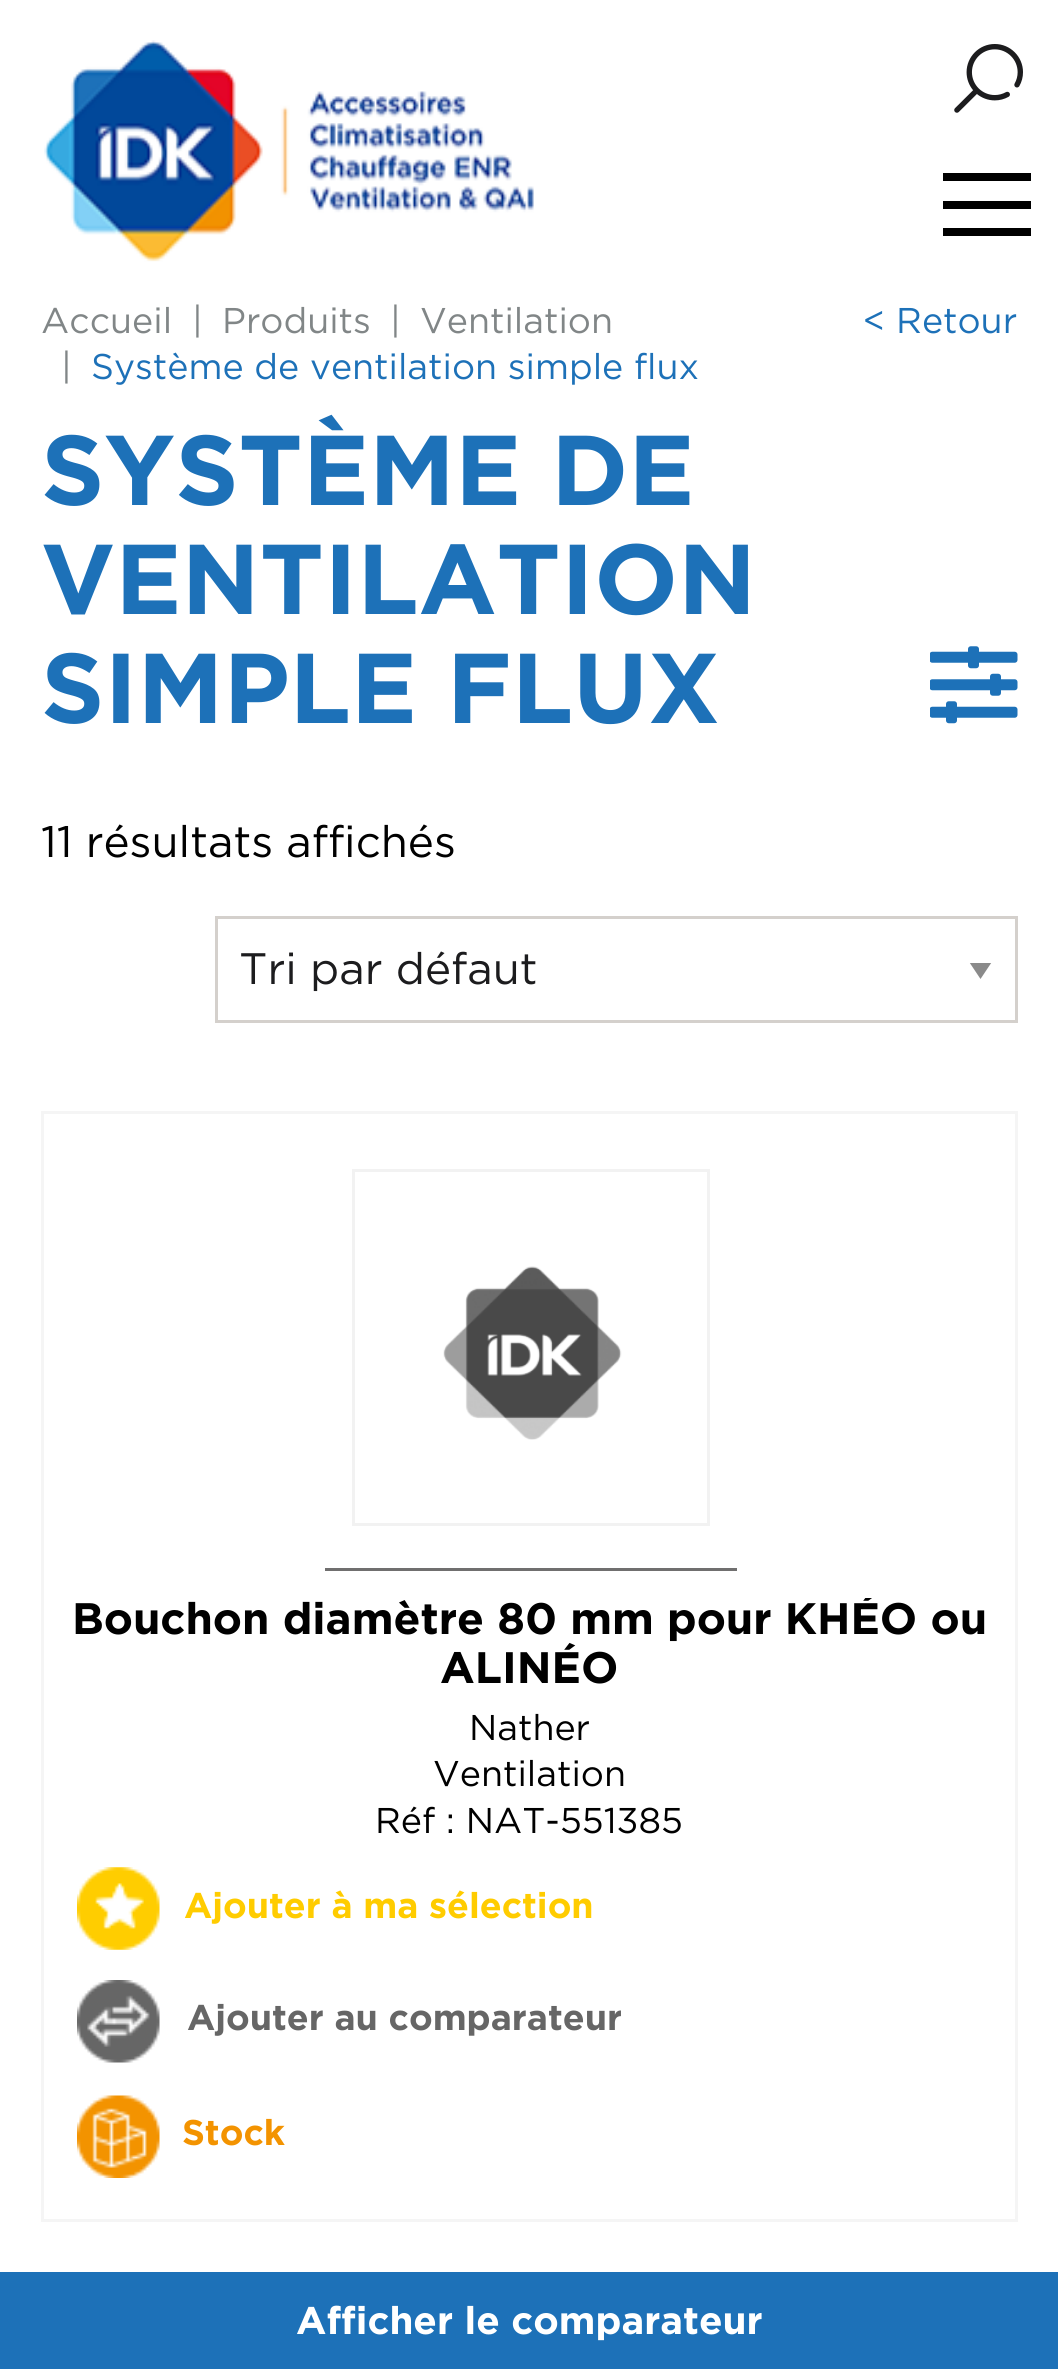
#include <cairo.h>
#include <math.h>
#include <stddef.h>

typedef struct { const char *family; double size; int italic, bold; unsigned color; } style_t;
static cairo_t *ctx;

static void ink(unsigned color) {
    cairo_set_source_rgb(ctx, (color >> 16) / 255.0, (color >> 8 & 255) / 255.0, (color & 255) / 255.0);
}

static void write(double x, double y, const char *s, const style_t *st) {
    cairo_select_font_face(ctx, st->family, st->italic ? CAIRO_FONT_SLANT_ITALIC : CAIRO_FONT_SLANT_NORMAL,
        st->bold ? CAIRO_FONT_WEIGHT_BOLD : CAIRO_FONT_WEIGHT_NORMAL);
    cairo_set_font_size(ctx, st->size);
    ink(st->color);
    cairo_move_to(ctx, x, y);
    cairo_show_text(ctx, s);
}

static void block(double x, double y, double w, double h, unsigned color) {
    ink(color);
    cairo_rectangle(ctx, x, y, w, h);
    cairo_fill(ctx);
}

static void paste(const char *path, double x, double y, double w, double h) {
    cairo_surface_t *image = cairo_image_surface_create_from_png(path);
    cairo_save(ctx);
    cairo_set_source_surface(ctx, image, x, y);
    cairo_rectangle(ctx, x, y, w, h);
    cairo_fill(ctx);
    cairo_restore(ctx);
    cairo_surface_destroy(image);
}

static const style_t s1 = {"Gotham", 35.75, 0, 0, 0x818687};
static const style_t s2 = {"Gotham", 35.75, 0, 0, 0x1d71b8};
static const style_t s3 = {"Gotham", 99, 0, 1, 0x1d71b8};
static const style_t s4 = {"Gotham", 44, 0, 0, 0x000000};
static const style_t s5 = {"Gotham", 44, 0, 0, 0x1c1c1e};
static const style_t s6 = {"Gotham", 44, 0, 1, 0x000000};
static const style_t s7 = {"Gotham", 35.75, 0, 0, 0x000000};
static const style_t s8 = {"Gotham", 35.75, 0, 1, 0xffcc00};
static const style_t s9 = {"Gotham", 35.75, 0, 1, 0x666666};
static const style_t s10 = {"Gotham", 35.75, 0, 1, 0xf39300};
static const style_t s11 = {"Gotham", 38.5, 0, 1, 0xffffff};

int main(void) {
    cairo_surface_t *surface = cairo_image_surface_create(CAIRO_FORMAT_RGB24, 1058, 2369);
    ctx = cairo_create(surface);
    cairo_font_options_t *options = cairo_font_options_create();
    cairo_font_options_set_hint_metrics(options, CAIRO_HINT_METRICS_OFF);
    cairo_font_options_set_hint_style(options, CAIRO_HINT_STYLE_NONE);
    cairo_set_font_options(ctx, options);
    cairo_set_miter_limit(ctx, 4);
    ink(0xffffff);
    cairo_paint(ctx);
    paste("pic1.png", 44, 40, 490, 222);
    paste("pic2.png", 954, 44, 69, 69);
    block(943, 173, 88, 8, 0x000000);
    block(943, 201, 88, 8, 0x000000);
    block(943, 228, 88, 8, 0x000000);
    write(41, 333, "Accueil", &s1);
    write(192, 333, "|", &s1);
    write(222, 333, "Produits", &s1);
    write(390, 333, "|", &s1);
    write(420, 333, "Ventilation", &s1);
    write(61, 379, "|", &s1);
    write(91, 379, "Système de ventilation simple flux", &s2);
    write(863, 333, "< Retour", &s2);
    write(41, 505, "SYSTÈME DE", &s3);
    write(41, 614, "VENTILATION", &s3);
    write(41, 723, "SIMPLE FLUX", &s3);
    paste("pic3.png", 930, 646, 88, 78);
    write(41, 857, "11 résultats affichés", &s4);
    cairo_save(ctx);
    cairo_rectangle(ctx, 968, 963, 25, 16);
    cairo_clip(ctx);
    ink(0x8a8a8a);
    cairo_new_path(ctx);
    cairo_move_to(ctx, 969.5, 962.5);
    cairo_line_to(ctx, 991.5, 962.5);
    cairo_line_to(ctx, 980.5, 979);
    cairo_close_path(ctx);
    cairo_fill(ctx);
    cairo_restore(ctx);
    cairo_rectangle(ctx, 216.5, 917.5, 800, 104);
    ink(0xd4d0cc);
    cairo_set_line_width(ctx, 3);
    cairo_stroke(ctx);
    write(239, 984, "Tri par défaut", &s5);
    cairo_rectangle(ctx, 42.5, 1112.5, 974, 1108);
    ink(0xf5f5f5);
    cairo_stroke(ctx);
    cairo_rectangle(ctx, 353.5, 1170.5, 355, 354);
    ink(0xf2f2f2);
    cairo_stroke(ctx);
    paste("pic4.png", 443, 1266, 179, 174);
    block(325, 1568, 412, 3, 0x706f6f);
    cairo_save(ctx);
    cairo_rectangle(ctx, 44, 1598, 971, 99);
    cairo_clip(ctx);
    write(72, 1634, "Bouchon diamètre 80 mm pour KHÉO ou", &s6);
    cairo_restore(ctx);
    write(440, 1683, "ALINÉO", &s6);
    write(469, 1740, "Nather", &s7);
    write(433, 1786, "Ventilation", &s7);
    write(375, 1833, "Réf : NAT-551385", &s7);
    paste("pic5.png", 77, 1867, 83, 83);
    write(184, 1918, "Ajouter à ma sélection", &s8);
    paste("pic6.png", 77, 1980, 83, 83);
    write(187, 2030, "Ajouter au comparateur", &s9);
    paste("pic7.png", 77, 2095, 83, 83);
    write(182, 2145, "Stock", &s10);
    block(0, 2272, 1058, 97, 0x1d71b8);
    write(296, 2334, "Afficher le comparateur", &s11);
    cairo_surface_write_to_png(surface, "screenshot.png");
    cairo_font_options_destroy(options);
    cairo_destroy(ctx);
    cairo_surface_destroy(surface);
    return 0;
}
